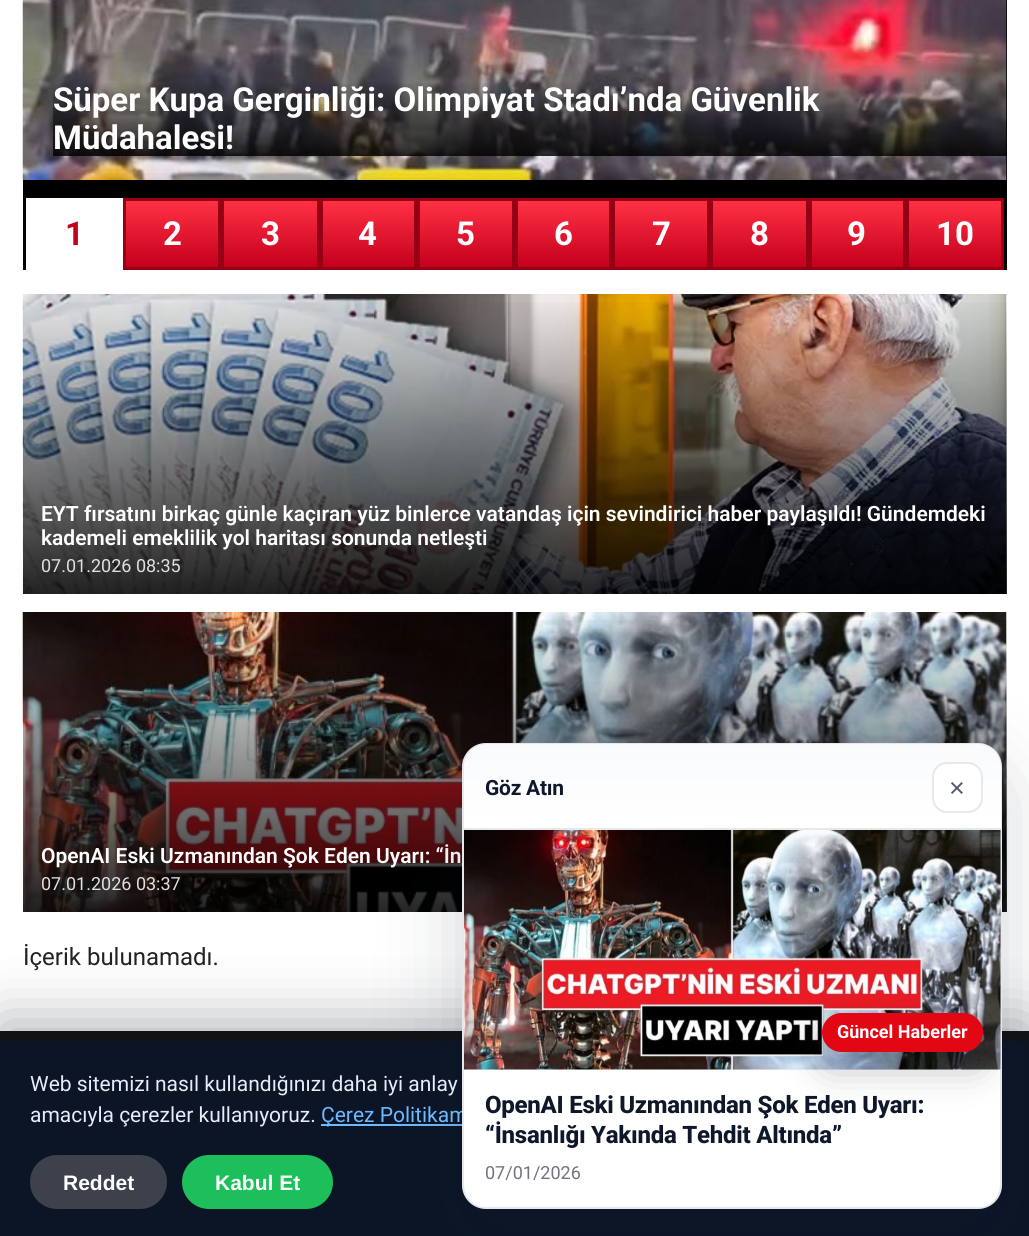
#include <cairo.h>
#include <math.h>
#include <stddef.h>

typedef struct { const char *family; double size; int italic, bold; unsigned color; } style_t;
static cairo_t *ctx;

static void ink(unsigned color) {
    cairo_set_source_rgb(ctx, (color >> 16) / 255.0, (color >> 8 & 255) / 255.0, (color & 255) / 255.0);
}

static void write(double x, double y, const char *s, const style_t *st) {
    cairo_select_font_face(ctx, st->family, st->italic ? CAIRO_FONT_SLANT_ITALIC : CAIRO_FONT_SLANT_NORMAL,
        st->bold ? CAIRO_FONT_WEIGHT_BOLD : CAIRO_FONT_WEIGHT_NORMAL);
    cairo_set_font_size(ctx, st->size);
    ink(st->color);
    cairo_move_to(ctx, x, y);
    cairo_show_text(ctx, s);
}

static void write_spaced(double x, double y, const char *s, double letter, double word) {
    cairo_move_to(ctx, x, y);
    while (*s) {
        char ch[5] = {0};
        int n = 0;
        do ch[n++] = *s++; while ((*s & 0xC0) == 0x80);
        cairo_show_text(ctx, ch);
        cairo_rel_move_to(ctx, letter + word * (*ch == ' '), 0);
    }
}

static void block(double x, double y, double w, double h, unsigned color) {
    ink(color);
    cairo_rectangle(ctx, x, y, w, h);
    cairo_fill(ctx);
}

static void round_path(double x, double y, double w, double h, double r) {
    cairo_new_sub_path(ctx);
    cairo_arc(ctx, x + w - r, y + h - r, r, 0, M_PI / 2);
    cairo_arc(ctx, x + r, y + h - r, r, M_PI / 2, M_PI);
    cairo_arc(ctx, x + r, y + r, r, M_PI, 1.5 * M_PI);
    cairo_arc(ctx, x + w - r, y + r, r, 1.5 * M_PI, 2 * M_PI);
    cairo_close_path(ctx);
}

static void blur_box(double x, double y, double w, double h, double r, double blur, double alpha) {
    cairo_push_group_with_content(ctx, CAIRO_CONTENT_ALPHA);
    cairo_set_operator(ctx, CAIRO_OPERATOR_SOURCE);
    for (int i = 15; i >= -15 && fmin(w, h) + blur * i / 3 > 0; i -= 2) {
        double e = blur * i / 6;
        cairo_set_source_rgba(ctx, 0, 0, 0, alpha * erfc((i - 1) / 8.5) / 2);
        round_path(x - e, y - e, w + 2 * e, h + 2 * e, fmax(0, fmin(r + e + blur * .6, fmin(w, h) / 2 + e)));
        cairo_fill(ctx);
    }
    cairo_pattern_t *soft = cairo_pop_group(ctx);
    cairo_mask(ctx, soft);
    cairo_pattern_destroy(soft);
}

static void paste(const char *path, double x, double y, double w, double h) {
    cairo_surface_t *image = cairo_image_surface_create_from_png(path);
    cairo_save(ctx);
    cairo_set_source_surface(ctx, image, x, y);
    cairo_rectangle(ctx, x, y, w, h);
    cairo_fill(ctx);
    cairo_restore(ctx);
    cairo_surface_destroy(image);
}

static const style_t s1 = {"Roboto", 33, 0, 1, 0xffffff};
static const style_t s2 = {"Roboto", 33, 0, 1, 0xc4001d};
static const style_t s3 = {"Roboto SemiBold", 21, 0, 0, 0xffffff};
static const style_t s4 = {"Roboto", 18, 0, 0, 0xe0e0e0};
static const style_t s5 = {"Roboto", 24, 0, 0, 0x222222};
static const style_t s6 = {"Roboto", 21, 0, 0, 0x6fb9ff};
static const style_t s7 = {"Liberation Sans", 27, 0, 0, 0x525866};
static const style_t s8 = {"Roboto", 18, 0, 1, 0xffffff};
static const style_t s9 = {"Roboto", 18, 0, 0, 0x6f747f};
static const style_t s10 = {"Roboto", 21, 0, 0, 0xe7ecf6};
static const style_t s11 = {"Liberation Sans", 21, 0, 1, 0xffffff};

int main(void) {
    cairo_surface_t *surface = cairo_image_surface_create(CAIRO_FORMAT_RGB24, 1029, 1236);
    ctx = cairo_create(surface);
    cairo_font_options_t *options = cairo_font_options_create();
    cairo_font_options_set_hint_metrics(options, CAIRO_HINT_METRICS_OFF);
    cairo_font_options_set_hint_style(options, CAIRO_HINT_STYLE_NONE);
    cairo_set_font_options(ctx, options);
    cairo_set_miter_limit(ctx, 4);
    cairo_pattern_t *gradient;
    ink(0xffffff);
    cairo_paint(ctx);
    block(23, 0, 984, 198, 0x000000);
    paste("pic1.png", 22, 0, 985, 180);
    gradient = cairo_pattern_create_linear(530, 156, 530, 81);
    cairo_pattern_add_color_stop_rgba(gradient, 0, 0, 0, 0, 0.85);
    cairo_pattern_add_color_stop_rgba(gradient, 1, 0, 0, 0, 0);
    cairo_set_source(ctx, gradient);
    cairo_pattern_destroy(gradient);
    cairo_rectangle(ctx, 53, 83, 954, 73);
    cairo_fill(ctx);
    write(53, 111, "Süper Kupa Gerginliği: Olimpiyat Stadı’nda Güvenlik", &s1);
    write(53, 149, "Müdahalesi!", &s1);
    paste("pic2.png", 22, 294, 985, 300);
    gradient = cairo_pattern_create_linear(515, 594, 515, 294);
    cairo_pattern_add_color_stop_rgba(gradient, 0, 0, 0, 0, 0.85);
    cairo_pattern_add_color_stop_rgba(gradient, 1, 0, 0, 0, 0);
    cairo_set_source(ctx, gradient);
    cairo_pattern_destroy(gradient);
    cairo_rectangle(ctx, 23, 302, 984, 292);
    cairo_fill(ctx);
    cairo_save(ctx);
    cairo_rectangle(ctx, 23, 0, 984, 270);
    cairo_clip(ctx);
    ink(0x000000);
    blur_box(23, 189, 984, 72, 0, 13.5, 0.35);
    cairo_restore(ctx);
    block(23, 198, 984, 72, 0x050505);
    block(26, 198, 97, 72, 0xffffff);
    write(65, 245, "1", &s2);
    gradient = cairo_pattern_create_linear(172, 201, 172, 267);
    cairo_pattern_add_color_stop_rgba(gradient, 0, 1, 0.188, 0.263, 1);
    cairo_pattern_add_color_stop_rgba(gradient, 1, 0.769, 0, 0.114, 1);
    cairo_set_source(ctx, gradient);
    cairo_pattern_destroy(gradient);
    cairo_rectangle(ctx, 126, 201, 92, 66);
    cairo_fill(ctx);
    cairo_rectangle(ctx, 124.5, 199.5, 95, 69);
    ink(0x950014);
    cairo_set_line_width(ctx, 3);
    cairo_stroke(ctx);
    write(163, 245, "2", &s1);
    gradient = cairo_pattern_create_linear(270, 201, 270, 267);
    cairo_pattern_add_color_stop_rgba(gradient, 0, 1, 0.188, 0.263, 1);
    cairo_pattern_add_color_stop_rgba(gradient, 1, 0.769, 0, 0.114, 1);
    cairo_set_source(ctx, gradient);
    cairo_pattern_destroy(gradient);
    cairo_rectangle(ctx, 224, 201, 93, 66);
    cairo_fill(ctx);
    cairo_rectangle(ctx, 222.5, 199.5, 96, 69);
    ink(0x950014);
    cairo_stroke(ctx);
    write(261, 245, "3", &s1);
    gradient = cairo_pattern_create_linear(368, 201, 368, 267);
    cairo_pattern_add_color_stop_rgba(gradient, 0, 1, 0.188, 0.263, 1);
    cairo_pattern_add_color_stop_rgba(gradient, 1, 0.769, 0, 0.114, 1);
    cairo_set_source(ctx, gradient);
    cairo_pattern_destroy(gradient);
    cairo_rectangle(ctx, 323, 201, 91, 66);
    cairo_fill(ctx);
    cairo_rectangle(ctx, 321.5, 199.5, 94, 69);
    ink(0x950014);
    cairo_stroke(ctx);
    write(358, 245, "4", &s1);
    gradient = cairo_pattern_create_linear(466, 201, 466, 267);
    cairo_pattern_add_color_stop_rgba(gradient, 0, 1, 0.188, 0.263, 1);
    cairo_pattern_add_color_stop_rgba(gradient, 1, 0.769, 0, 0.114, 1);
    cairo_set_source(ctx, gradient);
    cairo_pattern_destroy(gradient);
    cairo_rectangle(ctx, 420, 201, 92, 66);
    cairo_fill(ctx);
    cairo_rectangle(ctx, 418.5, 199.5, 95, 69);
    ink(0x950014);
    cairo_stroke(ctx);
    write(456, 245, "5", &s1);
    gradient = cairo_pattern_create_linear(563, 201, 563, 267);
    cairo_pattern_add_color_stop_rgba(gradient, 0, 1, 0.188, 0.263, 1);
    cairo_pattern_add_color_stop_rgba(gradient, 1, 0.769, 0, 0.114, 1);
    cairo_set_source(ctx, gradient);
    cairo_pattern_destroy(gradient);
    cairo_rectangle(ctx, 518, 201, 91, 66);
    cairo_fill(ctx);
    cairo_rectangle(ctx, 516.5, 199.5, 94, 69);
    ink(0x950014);
    cairo_stroke(ctx);
    write(554, 245, "6", &s1);
    gradient = cairo_pattern_create_linear(661, 201, 661, 267);
    cairo_pattern_add_color_stop_rgba(gradient, 0, 1, 0.188, 0.263, 1);
    cairo_pattern_add_color_stop_rgba(gradient, 1, 0.769, 0, 0.114, 1);
    cairo_set_source(ctx, gradient);
    cairo_pattern_destroy(gradient);
    cairo_rectangle(ctx, 615, 201, 92, 66);
    cairo_fill(ctx);
    cairo_rectangle(ctx, 613.5, 199.5, 95, 69);
    ink(0x950014);
    cairo_stroke(ctx);
    write(652, 245, "7", &s1);
    gradient = cairo_pattern_create_linear(759, 201, 759, 267);
    cairo_pattern_add_color_stop_rgba(gradient, 0, 1, 0.188, 0.263, 1);
    cairo_pattern_add_color_stop_rgba(gradient, 1, 0.769, 0, 0.114, 1);
    cairo_set_source(ctx, gradient);
    cairo_pattern_destroy(gradient);
    cairo_rectangle(ctx, 713, 201, 93, 66);
    cairo_fill(ctx);
    cairo_rectangle(ctx, 711.5, 199.5, 96, 69);
    ink(0x950014);
    cairo_stroke(ctx);
    write(750, 245, "8", &s1);
    gradient = cairo_pattern_create_linear(857, 201, 857, 267);
    cairo_pattern_add_color_stop_rgba(gradient, 0, 1, 0.188, 0.263, 1);
    cairo_pattern_add_color_stop_rgba(gradient, 1, 0.769, 0, 0.114, 1);
    cairo_set_source(ctx, gradient);
    cairo_pattern_destroy(gradient);
    cairo_rectangle(ctx, 812, 201, 91, 66);
    cairo_fill(ctx);
    cairo_rectangle(ctx, 810.5, 199.5, 94, 69);
    ink(0x950014);
    cairo_stroke(ctx);
    write(847, 245, "9", &s1);
    gradient = cairo_pattern_create_linear(955, 201, 955, 267);
    cairo_pattern_add_color_stop_rgba(gradient, 0, 1, 0.188, 0.263, 1);
    cairo_pattern_add_color_stop_rgba(gradient, 1, 0.769, 0, 0.114, 1);
    cairo_set_source(ctx, gradient);
    cairo_pattern_destroy(gradient);
    cairo_rectangle(ctx, 909, 201, 92, 66);
    cairo_fill(ctx);
    cairo_rectangle(ctx, 907.5, 199.5, 95, 69);
    ink(0x950014);
    cairo_stroke(ctx);
    write(936, 245, "10", &s1);
    write(41, 521, "EYT fırsatını birkaç günle kaçıran yüz binlerce vatandaş için sevindirici haber paylaşıldı! Gündemdeki", &s3);
    write(41, 545, "kademeli emeklilik yol haritası sonunda netleşti", &s3);
    write(41, 572, "07.01.2026 08:35", &s4);
    paste("pic3.png", 22, 612, 985, 300);
    gradient = cairo_pattern_create_linear(515, 912, 515, 612);
    cairo_pattern_add_color_stop_rgba(gradient, 0, 0, 0, 0, 0.85);
    cairo_pattern_add_color_stop_rgba(gradient, 1, 0, 0, 0, 0);
    cairo_set_source(ctx, gradient);
    cairo_pattern_destroy(gradient);
    cairo_rectangle(ctx, 23, 620, 984, 292);
    cairo_fill(ctx);
    write(41, 863, "OpenAI Eski Uzmanından Şok Eden Uyarı: “İn", &s3);
    write(41, 890, "07.01.2026 03:37", &s4);
    write(23, 965, "İçerik bulunamadı.", &s5);
    block(0, 1031, 1029, 10, 0x111111);
    ink(0x0c1522);
    blur_box(0, 1023, 1029, 195, 0, 30, 0.35);
    block(0, 1041, 1029, 195, 0x0b1526);
    block(321, 1124, 141, 2, 0x6fb9ff);
    ink(0x0f172a);
    blur_box(462, 770, 540, 466, 24, 41, 0.18);
    write(321, 1122, "Çerez Politikam", &s6);
    ink(0xffffff);
    round_path(462, 743, 540, 466, 24);
    cairo_fill(ctx);
    round_path(463, 744, 538, 464, 23);
    cairo_set_source_rgba(ctx, 0.059, 0.09, 0.165, 0.1);
    cairo_set_line_width(ctx, 2);
    cairo_stroke(ctx);
    gradient = cairo_pattern_create_linear(732, 744, 732, 828);
    cairo_pattern_add_color_stop_rgba(gradient, 0, 0.973, 0.98, 0.988, 0.95);
    cairo_pattern_add_color_stop_rgba(gradient, 1, 1, 1, 1, 0.95);
    cairo_set_source(ctx, gradient);
    cairo_pattern_destroy(gradient);
    cairo_new_path(ctx);
    cairo_move_to(ctx, 487, 744);
    cairo_line_to(ctx, 978, 744);
    cairo_curve_to(ctx, 990.5, 744, 1001, 754.5, 1001, 767);
    cairo_line_to(ctx, 1001, 828);
    cairo_line_to(ctx, 464, 828);
    cairo_line_to(ctx, 464, 767);
    cairo_curve_to(ctx, 464, 754.5, 474.5, 744, 487, 744);
    cairo_close_path(ctx);
    cairo_fill(ctx);
    block(464, 828, 537, 2, 0xe6e9eb);
    cairo_select_font_face(ctx, "Roboto", CAIRO_FONT_SLANT_NORMAL, CAIRO_FONT_WEIGHT_BOLD);
    ink(0x0f172a);
    write_spaced(485, 795, "Göz Atın", -0.25, 0);
    ink(0xffffff);
    round_path(933, 763, 49, 49, 14);
    cairo_fill_preserve(ctx);
    ink(0xe7e8ea);
    cairo_stroke(ctx);
    write(949, 797, "×", &s7);
    block(464, 830, 537, 240, 0xf1f5f9);
    paste("pic4.png", 464, 830, 537, 240);
    cairo_save(ctx);
    round_path(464, 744, 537, 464, 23);
    cairo_clip(ctx);
    ink(0x0f172a);
    blur_box(822, 1028, 161, 39, 19.5, 19.5, 0.28);
    cairo_restore(ctx);
    ink(0xe30613);
    round_path(822, 1013, 161, 39, 19.5);
    cairo_fill(ctx);
    write(837, 1038, "Güncel Haberler", &s8);
    cairo_select_font_face(ctx, "Roboto ExtraBold", CAIRO_FONT_SLANT_NORMAL, CAIRO_FONT_WEIGHT_NORMAL);
    cairo_set_font_size(ctx, 24);
    ink(0x0f172a);
    write_spaced(485, 1113, "OpenAI Eski Uzmanından Şok Eden Uyarı:", -0.25, 0);
    write_spaced(485, 1143, "“İnsanlığı Yakında Tehdit Altında”", -0.25, 0);
    write(485, 1179, "07/01/2026", &s9);
    write(30, 1091, "Web sitemizi nasıl kullandığınızı daha iyi anlay", &s10);
    write(30, 1122, "amacıyla çerezler kullanıyoruz.", &s10);
    ink(0x3c414b);
    round_path(30, 1155, 137, 54, 27);
    cairo_fill(ctx);
    write(63, 1190, "Reddet", &s11);
    ink(0x1dbf5b);
    round_path(182, 1155, 151, 54, 27);
    cairo_fill(ctx);
    write(215, 1190, "Kabul Et", &s11);
    cairo_surface_write_to_png(surface, "screenshot.png");
    cairo_font_options_destroy(options);
    cairo_destroy(ctx);
    cairo_surface_destroy(surface);
    return 0;
}
